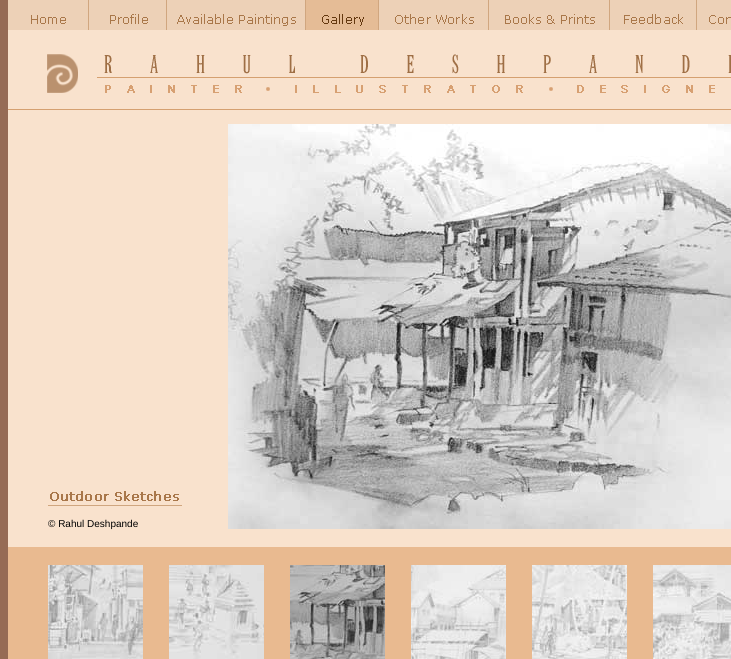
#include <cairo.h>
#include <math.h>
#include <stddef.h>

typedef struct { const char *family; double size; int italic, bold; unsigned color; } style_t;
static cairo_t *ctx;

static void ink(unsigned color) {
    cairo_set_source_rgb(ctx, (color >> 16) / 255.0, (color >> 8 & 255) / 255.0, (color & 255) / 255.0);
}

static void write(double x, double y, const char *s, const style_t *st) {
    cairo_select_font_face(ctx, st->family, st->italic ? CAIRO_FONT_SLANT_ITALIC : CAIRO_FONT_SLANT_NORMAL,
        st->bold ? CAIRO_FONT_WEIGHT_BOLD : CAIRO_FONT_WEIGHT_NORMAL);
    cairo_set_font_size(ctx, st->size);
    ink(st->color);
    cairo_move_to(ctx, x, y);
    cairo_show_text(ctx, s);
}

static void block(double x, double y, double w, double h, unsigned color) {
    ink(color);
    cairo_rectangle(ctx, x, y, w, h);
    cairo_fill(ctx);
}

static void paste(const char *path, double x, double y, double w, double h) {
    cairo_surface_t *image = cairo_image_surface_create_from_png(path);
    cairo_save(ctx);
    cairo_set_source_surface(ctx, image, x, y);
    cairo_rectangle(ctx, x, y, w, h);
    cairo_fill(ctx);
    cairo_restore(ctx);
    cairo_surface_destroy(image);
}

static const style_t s1 = {"Liberation Sans", 10, 0, 0, 0x000000};

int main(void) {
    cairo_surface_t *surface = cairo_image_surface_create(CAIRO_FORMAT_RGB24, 731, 659);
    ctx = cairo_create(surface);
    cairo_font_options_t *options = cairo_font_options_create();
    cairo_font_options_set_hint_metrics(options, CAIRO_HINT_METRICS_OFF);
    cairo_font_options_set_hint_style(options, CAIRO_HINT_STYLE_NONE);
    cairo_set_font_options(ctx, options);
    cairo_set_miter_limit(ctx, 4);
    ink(0x966b55);
    cairo_paint(ctx);
    block(8, 30, 723, 94, 0xf9e2cd);
    paste("pic1.png", 8, 0, 81, 30);
    paste("pic2.png", 89, 0, 78, 30);
    paste("pic3.png", 167, 0, 139, 30);
    paste("pic4.png", 306, 0, 73, 30);
    paste("pic5.png", 379, 0, 110, 30);
    paste("pic6.png", 489, 0, 121, 30);
    paste("pic7.png", 610, 0, 87, 30);
    paste("pic8.png", 697, 0, 34, 30);
    paste("pic9.png", 8, 54, 723, 56);
    block(8, 124, 220, 405, 0xf9e2cd);
    paste("pic10.png", 48, 491, 134, 15);
    block(8, 529, 723, 18, 0xf9e2cd);
    write(48, 527, "© Rahul Deshpande", &s1);
    paste("pic11.png", 228, 124, 503, 405);
    block(8, 547, 723, 18, 0xe9ba90);
    block(8, 565, 645, 94, 0xe9ba90);
    paste("pic12.png", 48, 565, 95, 94);
    paste("pic13.png", 169, 565, 95, 94);
    paste("pic14.png", 290, 565, 95, 94);
    paste("pic15.png", 411, 565, 95, 94);
    paste("pic16.png", 532, 565, 95, 94);
    paste("pic17.png", 653, 565, 78, 94);
    cairo_surface_write_to_png(surface, "screenshot.png");
    cairo_font_options_destroy(options);
    cairo_destroy(ctx);
    cairo_surface_destroy(surface);
    return 0;
}
